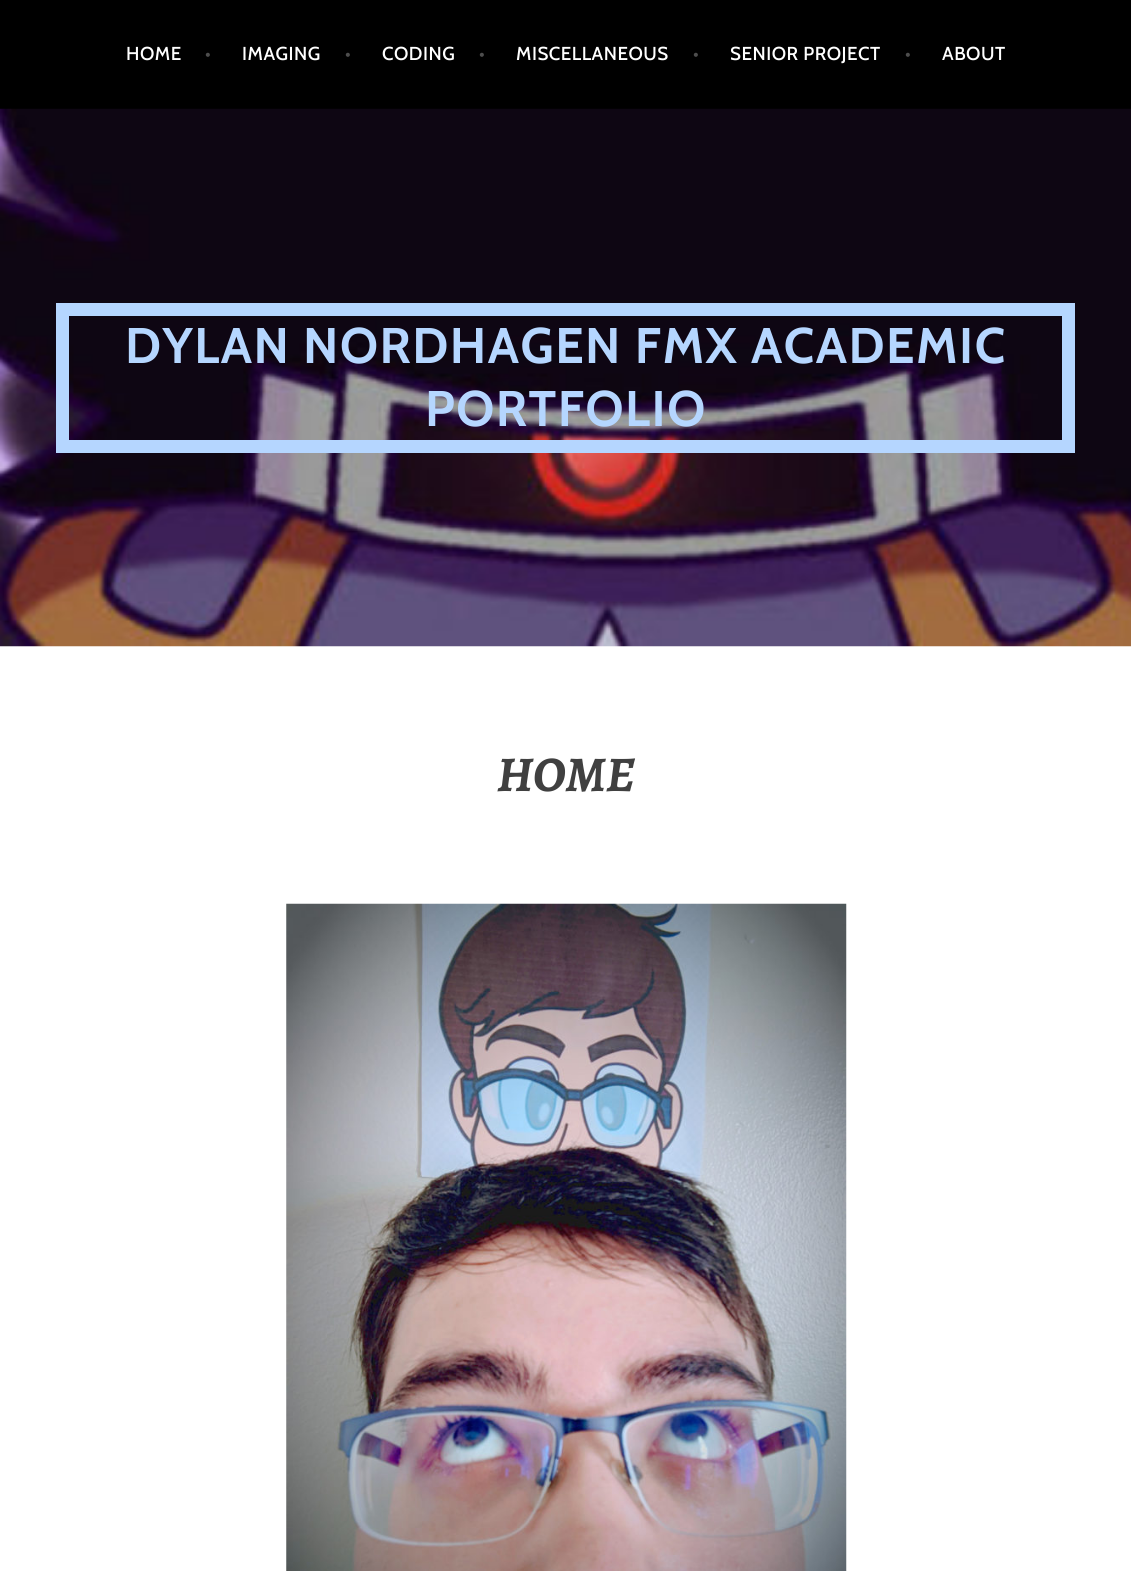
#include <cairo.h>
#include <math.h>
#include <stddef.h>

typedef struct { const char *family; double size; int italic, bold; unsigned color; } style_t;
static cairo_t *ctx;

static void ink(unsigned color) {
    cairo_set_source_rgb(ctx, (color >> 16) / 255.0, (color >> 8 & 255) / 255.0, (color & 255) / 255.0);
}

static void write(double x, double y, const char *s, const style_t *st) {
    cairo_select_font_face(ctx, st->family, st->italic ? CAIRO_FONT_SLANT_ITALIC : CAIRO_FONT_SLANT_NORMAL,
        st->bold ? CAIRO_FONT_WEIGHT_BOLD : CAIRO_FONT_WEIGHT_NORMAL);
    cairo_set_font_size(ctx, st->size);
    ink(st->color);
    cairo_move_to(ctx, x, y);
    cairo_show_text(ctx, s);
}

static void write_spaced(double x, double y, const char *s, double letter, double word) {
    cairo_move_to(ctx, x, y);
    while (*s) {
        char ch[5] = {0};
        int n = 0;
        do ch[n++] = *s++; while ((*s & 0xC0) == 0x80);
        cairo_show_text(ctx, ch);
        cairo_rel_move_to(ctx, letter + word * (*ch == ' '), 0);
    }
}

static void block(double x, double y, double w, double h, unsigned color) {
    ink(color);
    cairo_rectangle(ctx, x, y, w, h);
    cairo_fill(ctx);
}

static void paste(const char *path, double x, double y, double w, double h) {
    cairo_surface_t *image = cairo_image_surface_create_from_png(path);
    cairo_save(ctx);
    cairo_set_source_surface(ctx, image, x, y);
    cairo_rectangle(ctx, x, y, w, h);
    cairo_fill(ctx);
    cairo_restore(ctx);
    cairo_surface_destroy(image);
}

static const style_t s1 = {"Alegreya", 50, 1, 1, 0x404040};

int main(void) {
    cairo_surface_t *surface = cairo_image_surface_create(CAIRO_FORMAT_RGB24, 1131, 1571);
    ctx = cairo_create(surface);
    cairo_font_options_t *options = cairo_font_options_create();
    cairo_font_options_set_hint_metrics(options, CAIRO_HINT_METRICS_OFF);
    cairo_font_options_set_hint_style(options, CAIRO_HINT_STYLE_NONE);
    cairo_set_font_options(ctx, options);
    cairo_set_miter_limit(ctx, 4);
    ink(0xffffff);
    cairo_paint(ctx);
    block(0, 0, 1131, 109, 0x000000);
    cairo_select_font_face(ctx, "Cabin Medium", CAIRO_FONT_SLANT_NORMAL, CAIRO_FONT_WEIGHT_NORMAL);
    cairo_set_font_size(ctx, 18.75);
    ink(0xffffff);
    write_spaced(126, 60, "HOME", 0.5, 0);
    ink(0x4d4d4d);
    write_spaced(205, 60, "•", 0.5, 0);
    ink(0xffffff);
    write_spaced(242, 60, "IMAGING", 0.5, 0);
    ink(0x4d4d4d);
    write_spaced(345, 60, "•", 0.5, 0);
    ink(0xffffff);
    write_spaced(382, 60, "CODING", 0.5, 0);
    ink(0x4d4d4d);
    write_spaced(479, 60, "•", 0.5, 0);
    ink(0xffffff);
    write_spaced(516, 60, "MISCELLANEOUS", 0.5, 0);
    ink(0x4d4d4d);
    write_spaced(693, 60, "•", 0.5, 0);
    ink(0xffffff);
    write_spaced(730, 60, "SENIOR PROJECT", 0.5, 0);
    ink(0x4d4d4d);
    write_spaced(905, 60, "•", 0.5, 0);
    ink(0xffffff);
    write_spaced(942, 60, "ABOUT", 0.5, 0);
    paste("pic1.png", 0, 108, 1131, 539);
    cairo_rectangle(ctx, 62.5, 309.5, 1006, 137);
    ink(0xb5d6ff);
    cairo_set_line_width(ctx, 13);
    cairo_stroke(ctx);
    cairo_select_font_face(ctx, "Cabin", CAIRO_FONT_SLANT_NORMAL, CAIRO_FONT_WEIGHT_BOLD);
    cairo_set_font_size(ctx, 50);
    write_spaced(125, 363, "DYLAN NORDHAGEN FMX ACADEMIC", 1.5, 0);
    write_spaced(425, 426, "PORTFOLIO", 1.5, 0);
    write(497, 791, "HOME", &s1);
    paste("pic2.png", 286, 903, 561, 668);
    cairo_surface_write_to_png(surface, "screenshot.png");
    cairo_font_options_destroy(options);
    cairo_destroy(ctx);
    cairo_surface_destroy(surface);
    return 0;
}
